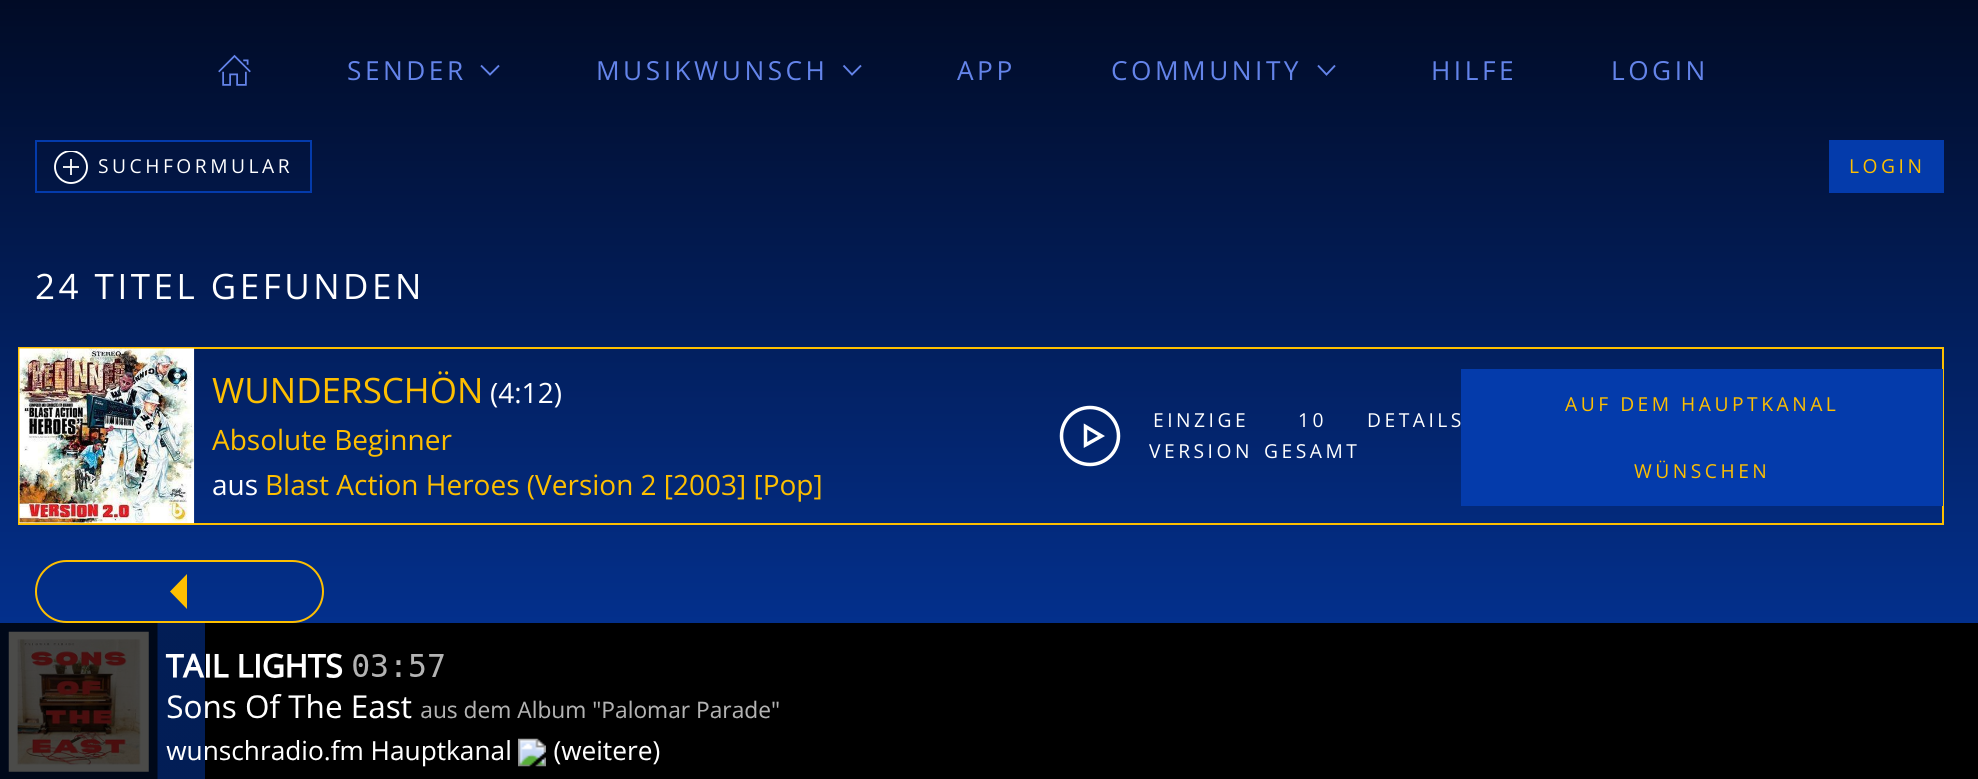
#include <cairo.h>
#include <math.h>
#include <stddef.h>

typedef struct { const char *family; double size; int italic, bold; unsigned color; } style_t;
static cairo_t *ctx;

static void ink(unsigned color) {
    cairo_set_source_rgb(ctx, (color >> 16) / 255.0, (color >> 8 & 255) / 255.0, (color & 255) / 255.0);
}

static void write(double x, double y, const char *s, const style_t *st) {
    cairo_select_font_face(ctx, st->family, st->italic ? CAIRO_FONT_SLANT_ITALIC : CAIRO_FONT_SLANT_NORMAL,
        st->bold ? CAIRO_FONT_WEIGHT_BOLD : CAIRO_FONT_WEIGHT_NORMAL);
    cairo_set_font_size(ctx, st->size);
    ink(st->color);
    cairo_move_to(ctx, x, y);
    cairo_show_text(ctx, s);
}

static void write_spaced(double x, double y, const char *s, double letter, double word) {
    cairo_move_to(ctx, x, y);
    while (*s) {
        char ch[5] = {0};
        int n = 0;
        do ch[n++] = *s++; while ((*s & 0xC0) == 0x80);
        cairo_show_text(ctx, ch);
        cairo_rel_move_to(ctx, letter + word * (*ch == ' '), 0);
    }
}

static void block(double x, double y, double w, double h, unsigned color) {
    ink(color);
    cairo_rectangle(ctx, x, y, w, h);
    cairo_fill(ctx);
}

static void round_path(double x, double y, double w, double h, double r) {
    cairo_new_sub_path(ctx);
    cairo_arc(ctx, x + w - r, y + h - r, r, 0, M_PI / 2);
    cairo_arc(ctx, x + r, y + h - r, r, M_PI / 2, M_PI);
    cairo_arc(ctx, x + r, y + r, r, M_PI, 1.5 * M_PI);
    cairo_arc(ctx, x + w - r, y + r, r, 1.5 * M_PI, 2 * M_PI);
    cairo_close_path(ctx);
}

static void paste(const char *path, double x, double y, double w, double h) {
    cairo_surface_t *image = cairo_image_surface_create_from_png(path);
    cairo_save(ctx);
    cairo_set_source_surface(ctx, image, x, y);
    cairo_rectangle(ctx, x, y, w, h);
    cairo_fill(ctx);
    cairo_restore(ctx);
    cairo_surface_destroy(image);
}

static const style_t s1 = {"Open Sans", 35, 0, 0, 0xfebf00};
static const style_t s2 = {"Open Sans", 28, 0, 0, 0xffffff};
static const style_t s3 = {"Open Sans", 28, 0, 0, 0xfebf00};

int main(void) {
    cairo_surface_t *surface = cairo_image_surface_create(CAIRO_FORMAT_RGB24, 1978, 779);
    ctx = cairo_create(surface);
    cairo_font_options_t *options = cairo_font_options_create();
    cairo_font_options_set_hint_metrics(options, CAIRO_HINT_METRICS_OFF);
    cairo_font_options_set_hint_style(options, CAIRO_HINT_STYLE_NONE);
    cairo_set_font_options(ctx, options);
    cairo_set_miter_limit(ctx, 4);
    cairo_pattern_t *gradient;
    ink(0xffffff);
    cairo_paint(ctx);
    gradient = cairo_pattern_create_linear(990, 0, 990, 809);
    cairo_pattern_add_color_stop_rgba(gradient, 0, 0.004, 0.043, 0.149, 1);
    cairo_pattern_add_color_stop_rgba(gradient, 1, 0.016, 0.231, 0.671, 1);
    cairo_set_source(ctx, gradient);
    cairo_pattern_destroy(gradient);
    cairo_rectangle(ctx, 0, 0, 1978, 623);
    cairo_fill(ctx);
    paste("pic1.png", 218, 54, 33, 32);
    cairo_select_font_face(ctx, "Open Sans", CAIRO_FONT_SLANT_NORMAL, CAIRO_FONT_WEIGHT_NORMAL);
    cairo_set_font_size(ctx, 26.25);
    ink(0x6484ea);
    write_spaced(347, 80, "SENDER", 3.5, 0);
    cairo_new_path(ctx);
    cairo_move_to(ctx, 481, 65.5);
    cairo_line_to(ctx, 490, 74.5);
    cairo_line_to(ctx, 499, 65.5);
    cairo_set_line_width(ctx, 1.9);
    cairo_stroke(ctx);
    write_spaced(596, 80, "MUSIKWUNSCH", 3.5, 0);
    cairo_new_path(ctx);
    cairo_move_to(ctx, 843.5, 65.5);
    cairo_line_to(ctx, 852, 74.5);
    cairo_line_to(ctx, 861, 65.5);
    cairo_stroke(ctx);
    write_spaced(957, 80, "APP", 3.5, 0);
    write_spaced(1111, 80, "COMMUNITY", 3.5, 0);
    cairo_new_path(ctx);
    cairo_move_to(ctx, 1318, 65.5);
    cairo_line_to(ctx, 1326.5, 74.5);
    cairo_line_to(ctx, 1335, 65.5);
    cairo_stroke(ctx);
    write_spaced(1431, 80, "HILFE", 3.5, 0);
    write_spaced(1611, 80, "LOGIN", 3.5, 0);
    gradient = cairo_pattern_create_linear(990, 0, 990, 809);
    cairo_pattern_add_color_stop_rgba(gradient, 0, 0.902, 0.906, 0.914, 1);
    cairo_pattern_add_color_stop_rgba(gradient, 1, 0.902, 0.922, 0.969, 1);
    cairo_set_source(ctx, gradient);
    cairo_pattern_destroy(gradient);
    cairo_rectangle(ctx, 63, 166, 16, 2);
    cairo_fill(ctx);
    cairo_rectangle(ctx, 70, 159, 2, 16);
    cairo_fill(ctx);
    gradient = cairo_pattern_create_linear(990, 0, 990, 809);
    cairo_pattern_add_color_stop_rgba(gradient, 0, 0.992, 0.992, 0.992, 1);
    cairo_pattern_add_color_stop_rgba(gradient, 1, 0.992, 0.992, 0.996, 1);
    cairo_set_source(ctx, gradient);
    cairo_pattern_destroy(gradient);
    cairo_rectangle(ctx, 70, 166, 2, 2);
    cairo_fill(ctx);
    cairo_rectangle(ctx, 36, 141, 275, 51);
    ink(0x043bab);
    cairo_set_line_width(ctx, 2);
    cairo_stroke(ctx);
    cairo_save(ctx);
    cairo_rectangle(ctx, 54, 151, 35, 35);
    cairo_clip(ctx);
    cairo_arc(ctx, 71, 167, 16, 0, 2 * M_PI);
    ink(0xffffff);
    cairo_set_line_width(ctx, 1.9);
    cairo_stroke(ctx);
    cairo_restore(ctx);
    cairo_set_font_size(ctx, 19.25);
    ink(0xffffff);
    write_spaced(98, 173, "SUCHFORMULAR", 3.5, 0);
    block(1829, 140, 115, 53, 0x043bab);
    ink(0xfebf00);
    write_spaced(1849, 173, "LOGIN", 3.5, 0);
    cairo_set_font_size(ctx, 35);
    ink(0xffffff);
    write_spaced(35, 299, "24 TITEL GEFUNDEN", 3.5, 0);
    cairo_rectangle(ctx, 19, 348, 1924, 176);
    ink(0xfebf00);
    cairo_stroke(ctx);
    paste("pic2.png", 19, 348, 176, 176);
    write(212, 403, "WUNDERSCHÖN", &s1);
    write(490, 403, "(4:12)", &s2);
    write(212, 450, "Absolute Beginner", &s3);
    write(212, 495, "aus", &s2);
    write(265, 495, "Blast Action Heroes (Version 2 [2003] [Pop]", &s3);
    cairo_new_path(ctx);
    cairo_move_to(ctx, 1085.5, 426.5);
    cairo_line_to(ctx, 1101.5, 436);
    cairo_line_to(ctx, 1085.5, 445);
    cairo_close_path(ctx);
    ink(0xffffff);
    cairo_set_line_width(ctx, 3.5);
    cairo_stroke(ctx);
    cairo_arc(ctx, 1090, 436, 28.5, 0, 2 * M_PI);
    cairo_stroke(ctx);
    cairo_set_font_size(ctx, 19.25);
    write_spaced(1153, 427, "EINZIGE", 3.5, 0);
    write_spaced(1149, 458, "VERSION", 3.5, 0);
    write_spaced(1298, 427, "10", 3.5, 0);
    write_spaced(1264, 458, "GESAMT", 3.5, 0);
    write_spaced(1367, 427, "DETAILS", 3.5, 0);
    block(1461, 369, 482, 137, 0x043bab);
    ink(0xfebf00);
    write_spaced(1565, 411, "AUF DEM HAUPTKANAL", 3.5, 0);
    write_spaced(1634, 478, "WÜNSCHEN", 3.5, 0);
    round_path(36, 561, 287, 61, 30.5);
    cairo_set_line_width(ctx, 2);
    cairo_stroke(ctx);
    cairo_new_path(ctx);
    cairo_move_to(ctx, 187, 574);
    cairo_line_to(ctx, 170, 591.5);
    cairo_line_to(ctx, 187, 609);
    cairo_close_path(ctx);
    cairo_fill(ctx);
    paste("pic3.png", 0, 623, 1978, 156);
    cairo_surface_write_to_png(surface, "screenshot.png");
    cairo_font_options_destroy(options);
    cairo_destroy(ctx);
    cairo_surface_destroy(surface);
    return 0;
}
